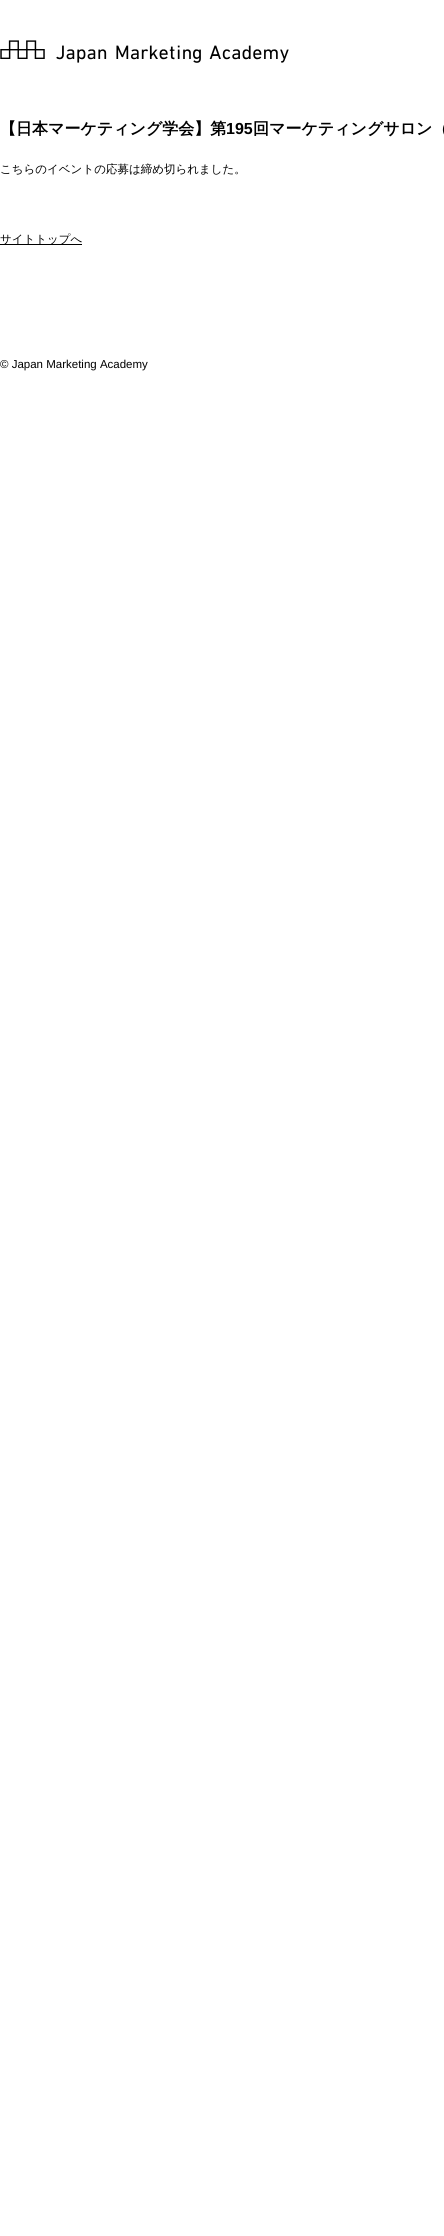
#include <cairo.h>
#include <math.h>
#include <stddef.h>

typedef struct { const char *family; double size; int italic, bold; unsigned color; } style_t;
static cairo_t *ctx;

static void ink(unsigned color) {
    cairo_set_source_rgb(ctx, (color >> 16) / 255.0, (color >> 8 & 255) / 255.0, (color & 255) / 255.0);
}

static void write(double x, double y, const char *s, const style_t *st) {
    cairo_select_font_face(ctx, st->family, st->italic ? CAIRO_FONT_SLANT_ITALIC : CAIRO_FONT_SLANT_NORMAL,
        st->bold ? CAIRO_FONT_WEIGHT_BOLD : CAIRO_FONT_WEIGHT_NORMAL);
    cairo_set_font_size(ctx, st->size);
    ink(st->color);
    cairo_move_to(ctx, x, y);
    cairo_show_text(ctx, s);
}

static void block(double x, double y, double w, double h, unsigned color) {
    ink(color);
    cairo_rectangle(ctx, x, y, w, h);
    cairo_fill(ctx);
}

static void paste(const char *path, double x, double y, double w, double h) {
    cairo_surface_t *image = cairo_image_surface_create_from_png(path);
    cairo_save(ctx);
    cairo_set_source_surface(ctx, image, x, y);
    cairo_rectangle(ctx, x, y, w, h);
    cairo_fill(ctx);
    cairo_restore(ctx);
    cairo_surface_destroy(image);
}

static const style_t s1 = {"WenQuanYi Zen Hei", 16, 0, 1, 0x000000};
static const style_t s2 = {"Liberation Sans", 16, 0, 1, 0x000000};
static const style_t s3 = {"WenQuanYi Zen Hei Medium", 11.5, 0, 0, 0x000000};
static const style_t s4 = {"Liberation Sans", 11.5, 0, 0, 0x000000};

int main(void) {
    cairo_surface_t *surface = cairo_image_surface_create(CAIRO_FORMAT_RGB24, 444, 2236);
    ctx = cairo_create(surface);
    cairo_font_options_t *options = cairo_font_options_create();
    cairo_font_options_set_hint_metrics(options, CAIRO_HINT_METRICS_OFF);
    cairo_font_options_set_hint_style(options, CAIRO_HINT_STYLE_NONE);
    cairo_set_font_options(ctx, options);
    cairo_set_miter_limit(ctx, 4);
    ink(0xffffff);
    cairo_paint(ctx);
    paste("pic1.png", 0, 40, 289, 23);
    write(0, 134, "【日本マーケティング学会】第", &s1);
    write(226, 134, "195", &s2);
    write(253, 134, "回マーケティングサロン（", &s1);
    write(0, 173, "こちらのイベントの応募は締め切られました。", &s3);
    block(0, 244, 82, 1, 0x000000);
    write(0, 243, "サイトトップへ", &s3);
    write(0, 368, "© Japan Marketing Academy", &s4);
    cairo_surface_write_to_png(surface, "screenshot.png");
    cairo_font_options_destroy(options);
    cairo_destroy(ctx);
    cairo_surface_destroy(surface);
    return 0;
}
